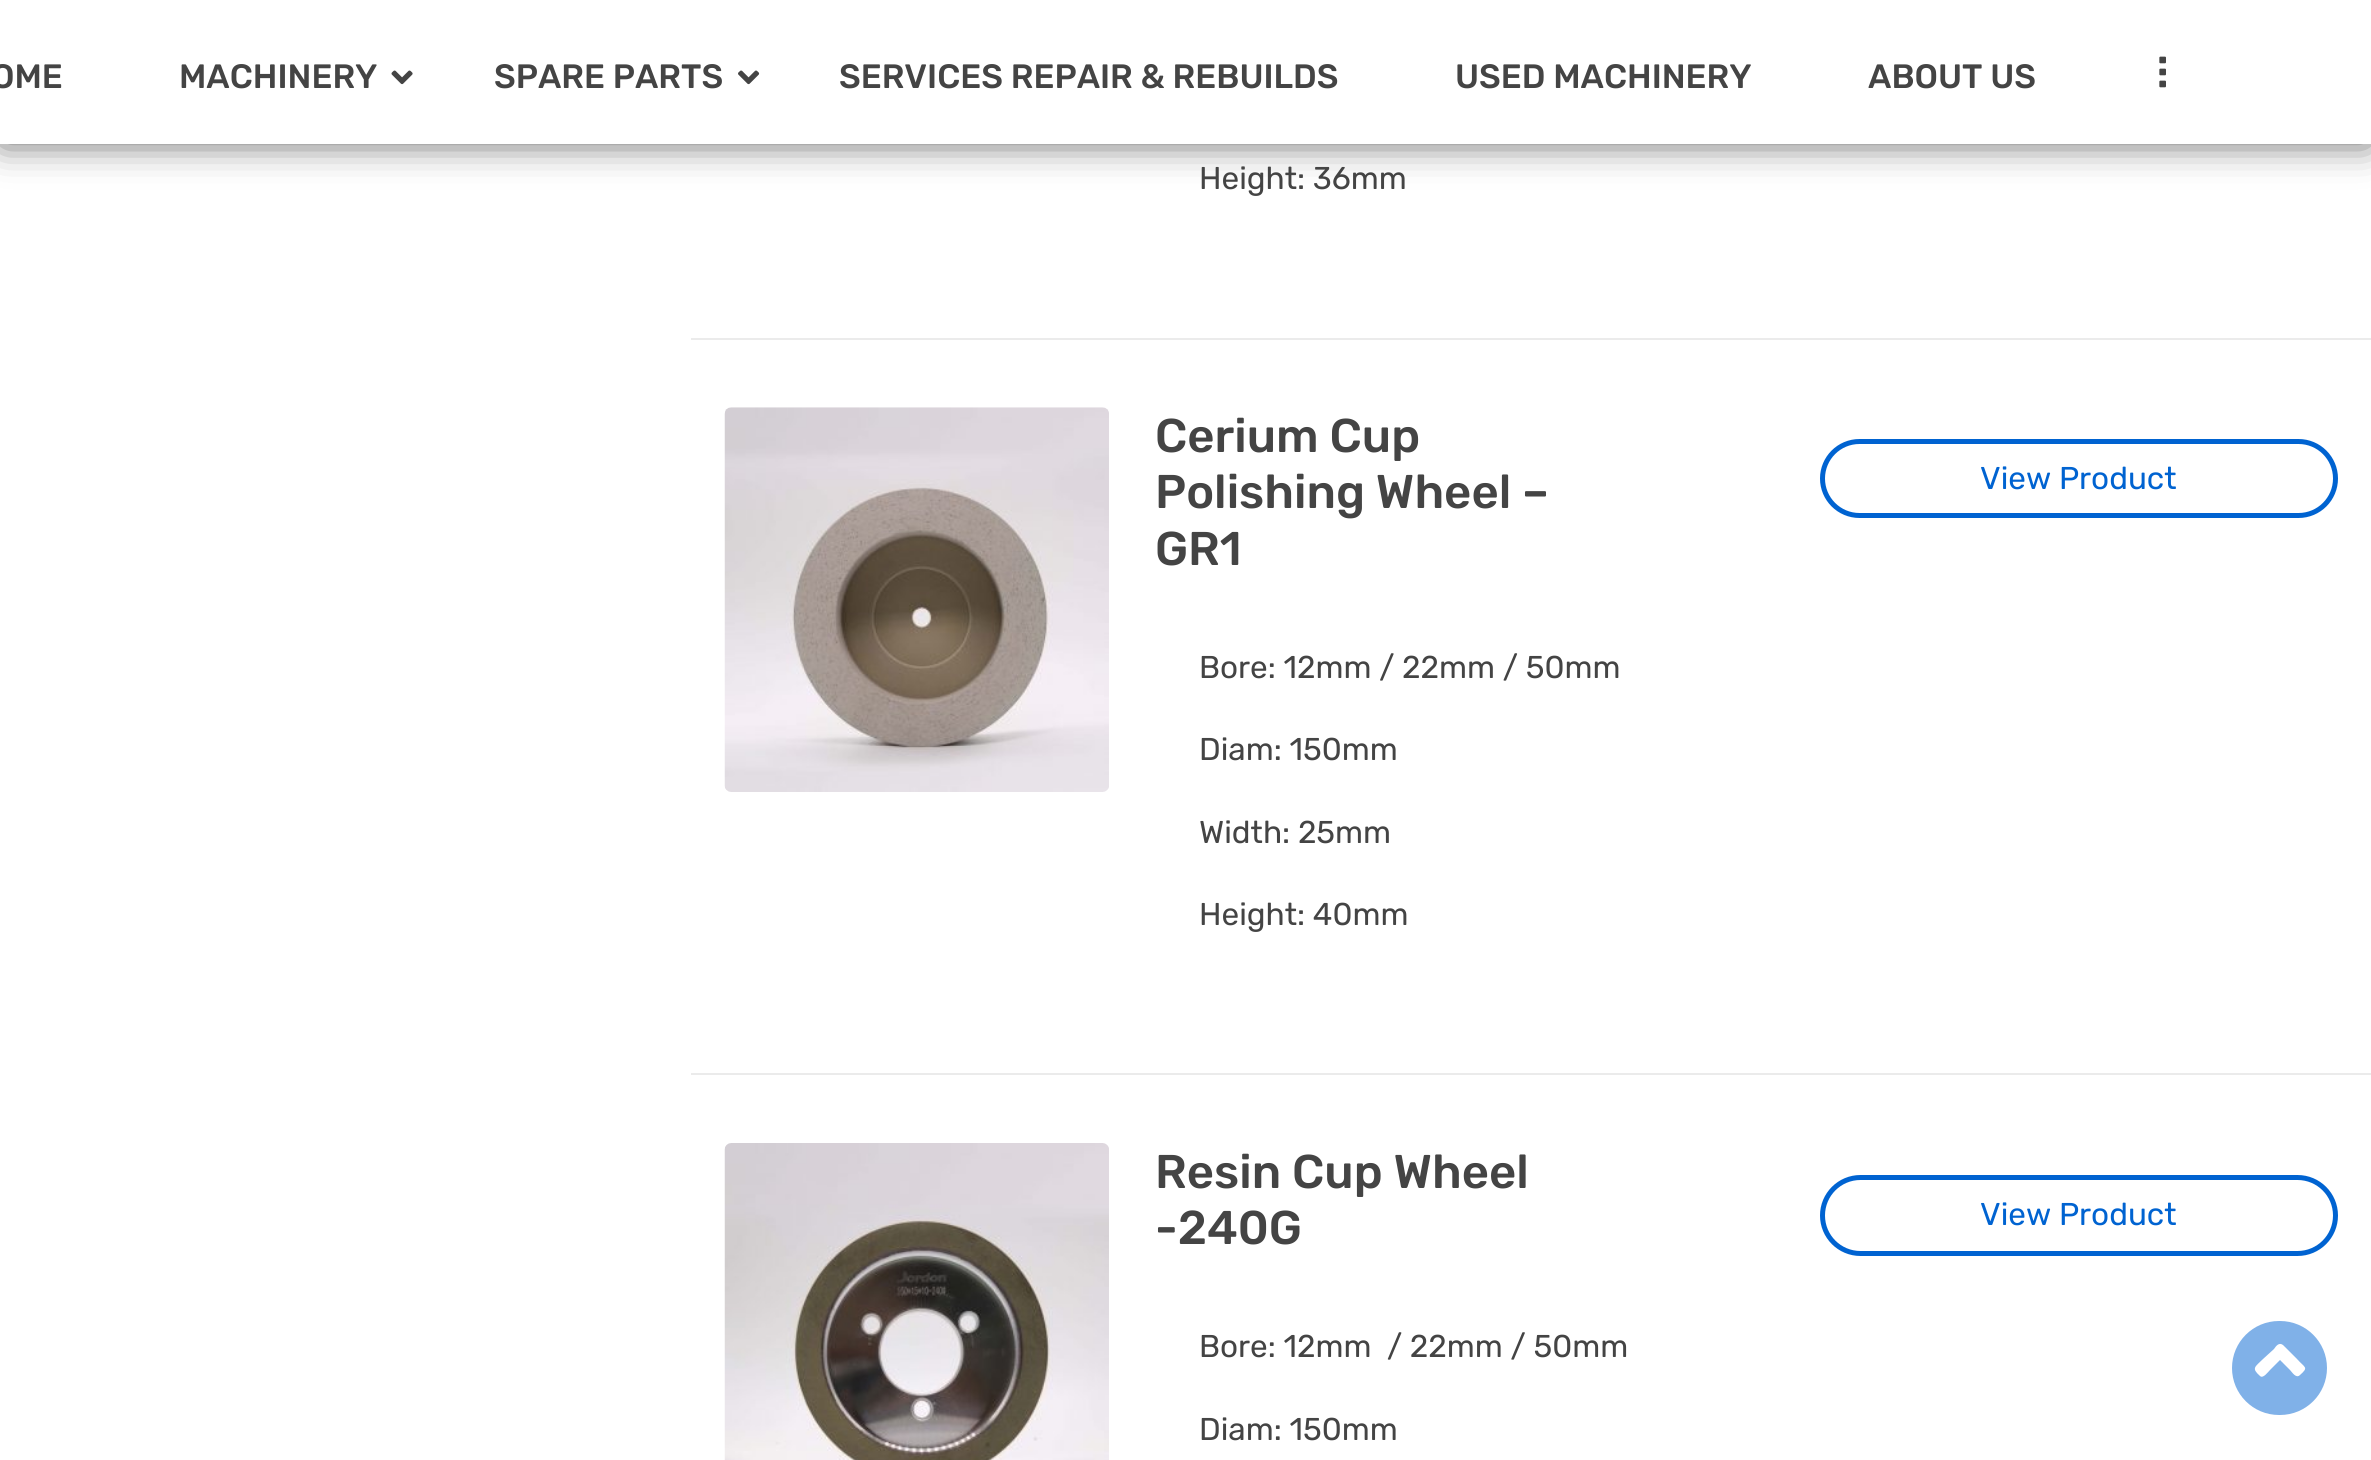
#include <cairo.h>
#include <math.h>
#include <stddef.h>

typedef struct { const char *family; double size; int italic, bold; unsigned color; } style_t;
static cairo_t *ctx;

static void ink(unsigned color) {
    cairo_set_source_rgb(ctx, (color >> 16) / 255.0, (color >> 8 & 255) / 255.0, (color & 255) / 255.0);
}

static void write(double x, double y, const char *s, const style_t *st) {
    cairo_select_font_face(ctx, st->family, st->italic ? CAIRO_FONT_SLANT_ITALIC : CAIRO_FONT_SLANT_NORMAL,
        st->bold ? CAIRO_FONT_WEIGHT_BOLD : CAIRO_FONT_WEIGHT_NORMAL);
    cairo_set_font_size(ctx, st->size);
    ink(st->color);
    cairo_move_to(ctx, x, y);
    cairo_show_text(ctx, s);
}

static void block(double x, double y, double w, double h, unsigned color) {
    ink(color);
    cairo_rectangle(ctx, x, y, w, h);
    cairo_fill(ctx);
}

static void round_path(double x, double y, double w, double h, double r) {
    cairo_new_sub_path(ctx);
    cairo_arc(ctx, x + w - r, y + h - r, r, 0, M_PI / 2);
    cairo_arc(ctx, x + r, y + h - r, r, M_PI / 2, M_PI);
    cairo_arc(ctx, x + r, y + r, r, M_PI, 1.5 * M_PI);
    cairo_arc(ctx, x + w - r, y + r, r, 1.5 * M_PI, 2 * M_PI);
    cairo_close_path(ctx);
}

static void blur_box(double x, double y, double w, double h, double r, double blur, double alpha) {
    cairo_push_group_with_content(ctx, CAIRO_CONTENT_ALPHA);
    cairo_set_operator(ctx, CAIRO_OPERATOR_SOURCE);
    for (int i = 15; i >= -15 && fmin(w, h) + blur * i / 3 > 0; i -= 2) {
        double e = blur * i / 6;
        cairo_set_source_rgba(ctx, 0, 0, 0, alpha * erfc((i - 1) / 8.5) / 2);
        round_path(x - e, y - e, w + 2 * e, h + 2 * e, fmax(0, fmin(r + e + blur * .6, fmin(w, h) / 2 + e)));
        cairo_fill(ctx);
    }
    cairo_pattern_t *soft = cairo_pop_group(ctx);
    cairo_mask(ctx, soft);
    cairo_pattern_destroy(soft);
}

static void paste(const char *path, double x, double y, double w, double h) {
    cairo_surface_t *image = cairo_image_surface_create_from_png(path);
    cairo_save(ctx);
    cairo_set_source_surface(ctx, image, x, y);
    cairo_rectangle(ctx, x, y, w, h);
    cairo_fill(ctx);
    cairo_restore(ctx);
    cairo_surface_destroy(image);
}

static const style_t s1 = {"Rubik Medium", 33.75, 0, 0, 0x444444};
static const style_t s2 = {"Rubik Medium", 45, 0, 0, 0x444444};
static const style_t s3 = {"Rubik", 31.5, 0, 0, 0x444444};
static const style_t s4 = {"Rubik Medium", 47.25, 0, 0, 0x444444};
static const style_t s5 = {"Rubik", 31.5, 0, 0, 0x0063d1};

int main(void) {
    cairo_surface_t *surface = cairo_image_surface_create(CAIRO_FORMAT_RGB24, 2371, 1460);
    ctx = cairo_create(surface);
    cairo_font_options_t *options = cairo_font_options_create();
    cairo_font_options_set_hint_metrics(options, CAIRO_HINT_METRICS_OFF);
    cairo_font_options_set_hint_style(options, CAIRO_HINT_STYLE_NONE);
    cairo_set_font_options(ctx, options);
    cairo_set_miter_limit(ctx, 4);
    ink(0xffffff);
    cairo_paint(ctx);
    ink(0x000000);
    blur_box(2, 2, 2367, 140, 0, 19, 0.66);
    block(0, 0, 2371, 144, 0xffffff);
    write(-9, 88, "OME", &s1);
    write(179, 88, "MACHINERY", &s1);
    paste("pic1.png", 391, 70, 22, 15);
    write(494, 88, "SPARE PARTS", &s1);
    paste("pic2.png", 738, 70, 22, 15);
    write(839, 88, "SERVICES REPAIR & REBUILDS", &s1);
    write(1455, 88, "USED MACHINERY", &s1);
    write(1868, 88, "ABOUT US", &s1);
    cairo_save(ctx);
    cairo_translate(ctx, 2166, 90);
    cairo_rotate(ctx, -90 * M_PI / 180);
    write(0, 0, "...", &s2);
    cairo_restore(ctx);
    write(1199, 189, "Height: 36mm", &s3);
    block(691, 338, 1680, 2, 0xebebeb);
    paste("pic3.png", 724, 407, 385, 385);
    write(1155, 452, "Cerium Cup", &s4);
    write(1155, 508, "Polishing Wheel –", &s4);
    write(1155, 565, "GR1", &s4);
    write(1199, 678, "Bore: 12mm / 22mm / 50mm", &s3);
    write(1199, 760, "Diam: 150mm", &s3);
    write(1199, 843, "Width: 25mm", &s3);
    write(1199, 925, "Height: 40mm", &s3);
    round_path(1822.5, 441.5, 513, 74, 37);
    ink(0x0063d1);
    cairo_set_line_width(ctx, 5);
    cairo_stroke(ctx);
    write(1980, 489, "View Product", &s5);
    block(691, 1073, 1680, 2, 0xebebeb);
    paste("pic4.png", 724, 1143, 385, 317);
    write(1155, 1188, "Resin Cup Wheel", &s4);
    write(1155, 1244, "-240G", &s4);
    write(1199, 1357, "Bore: 12mm  / 22mm / 50mm", &s3);
    write(1199, 1440, "Diam: 150mm", &s3);
    round_path(1822.5, 1177.5, 513, 76, 38);
    ink(0x0063d1);
    cairo_stroke(ctx);
    write(1980, 1225, "View Product", &s5);
    ink(0x80b1e8);
    round_path(2232, 1321, 95, 94, 47);
    cairo_fill(ctx);
    ink(0xffffff);
    cairo_new_path(ctx);
    cairo_move_to(ctx, 2283, 1345);
    cairo_line_to(ctx, 2297, 1359);
    cairo_curve_to(ctx, 2305, 1368, 2309, 1367, 2300, 1375);
    cairo_curve_to(ctx, 2296, 1379, 2292, 1372, 2290, 1370);
    cairo_line_to(ctx, 2280, 1360);
    cairo_line_to(ctx, 2270, 1370);
    cairo_curve_to(ctx, 2268, 1372, 2263, 1379, 2260, 1376);
    cairo_curve_to(ctx, 2251, 1368, 2255, 1367, 2263, 1359);
    cairo_line_to(ctx, 2274, 1349);
    cairo_curve_to(ctx, 2276, 1346, 2279, 1342, 2283, 1345);
    cairo_close_path(ctx);
    cairo_fill(ctx);
    cairo_surface_write_to_png(surface, "screenshot.png");
    cairo_font_options_destroy(options);
    cairo_destroy(ctx);
    cairo_surface_destroy(surface);
    return 0;
}
